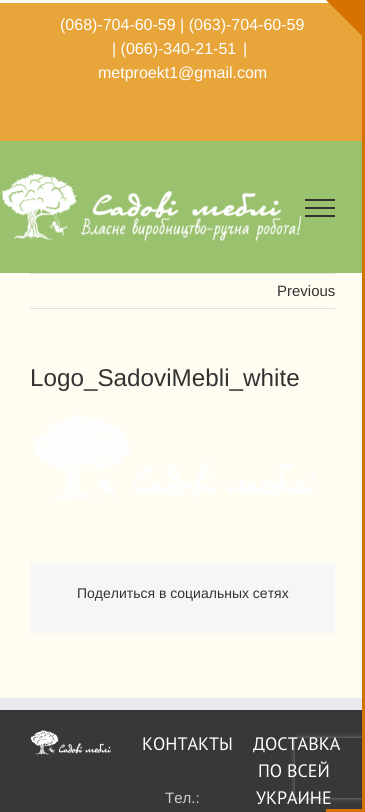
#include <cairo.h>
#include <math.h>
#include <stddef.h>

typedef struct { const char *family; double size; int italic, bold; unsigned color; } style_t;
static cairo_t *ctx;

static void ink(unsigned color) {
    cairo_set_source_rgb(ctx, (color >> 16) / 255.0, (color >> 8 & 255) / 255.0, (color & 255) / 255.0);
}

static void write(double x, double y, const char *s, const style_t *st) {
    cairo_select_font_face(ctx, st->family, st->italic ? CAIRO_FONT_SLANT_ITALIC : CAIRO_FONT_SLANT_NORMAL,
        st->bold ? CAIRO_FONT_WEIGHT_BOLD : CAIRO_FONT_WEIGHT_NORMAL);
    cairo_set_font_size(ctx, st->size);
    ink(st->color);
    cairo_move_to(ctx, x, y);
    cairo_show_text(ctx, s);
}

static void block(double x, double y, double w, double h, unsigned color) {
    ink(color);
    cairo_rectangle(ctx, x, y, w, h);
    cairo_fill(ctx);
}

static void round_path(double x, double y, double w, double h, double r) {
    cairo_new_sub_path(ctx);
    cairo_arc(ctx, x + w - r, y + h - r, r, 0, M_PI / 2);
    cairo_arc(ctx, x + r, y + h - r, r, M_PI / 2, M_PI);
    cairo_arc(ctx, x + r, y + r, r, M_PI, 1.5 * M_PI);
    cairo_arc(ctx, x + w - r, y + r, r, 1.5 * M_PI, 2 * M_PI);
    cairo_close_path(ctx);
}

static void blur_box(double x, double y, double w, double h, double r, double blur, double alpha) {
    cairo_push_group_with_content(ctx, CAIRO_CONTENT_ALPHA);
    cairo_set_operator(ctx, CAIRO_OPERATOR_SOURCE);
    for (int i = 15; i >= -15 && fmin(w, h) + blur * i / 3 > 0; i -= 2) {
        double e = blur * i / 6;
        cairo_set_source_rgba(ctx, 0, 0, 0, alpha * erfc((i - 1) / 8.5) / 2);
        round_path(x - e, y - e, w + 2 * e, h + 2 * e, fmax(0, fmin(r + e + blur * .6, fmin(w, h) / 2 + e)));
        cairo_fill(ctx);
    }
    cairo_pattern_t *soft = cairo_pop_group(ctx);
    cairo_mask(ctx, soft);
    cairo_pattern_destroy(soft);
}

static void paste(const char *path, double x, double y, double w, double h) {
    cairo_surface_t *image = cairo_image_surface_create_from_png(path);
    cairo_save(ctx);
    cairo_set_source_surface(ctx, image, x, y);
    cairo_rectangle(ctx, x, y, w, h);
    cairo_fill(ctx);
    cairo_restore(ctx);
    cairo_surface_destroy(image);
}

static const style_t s1 = {"Liberation Sans", 16, 0, 0, 0xffffff};
static const style_t s2 = {"Liberation Sans", 15, 0, 0, 0x333333};
static const style_t s3 = {"Liberation Sans", 24.25, 0, 0, 0x333333};
static const style_t s4 = {"Liberation Sans", 14, 0, 0, 0x333333};
static const style_t s5 = {"PT Sans", 18, 0, 0, 0xffffff};
static const style_t s6 = {"Liberation Sans", 15, 0, 0, 0xcecece};

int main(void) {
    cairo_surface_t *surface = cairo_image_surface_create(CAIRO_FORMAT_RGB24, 365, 812);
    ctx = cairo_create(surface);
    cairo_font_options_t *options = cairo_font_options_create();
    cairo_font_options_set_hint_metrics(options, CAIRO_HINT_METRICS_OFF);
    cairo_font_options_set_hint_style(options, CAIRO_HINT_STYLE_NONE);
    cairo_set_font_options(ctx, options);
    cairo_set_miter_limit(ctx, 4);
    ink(0xfffcf1);
    cairo_paint(ctx);
    block(0, 3, 362, 138, 0xe7a53a);
    write(60, 30, "(068)-704-60-59 | (063)-704-60-59", &s1);
    write(112, 54, "| (066)-340-21-51", &s1);
    write(243, 54, "|", &s1);
    write(98, 78, "metproekt1@gmail.com", &s1);
    block(0, 141, 362, 132, 0x9ac16e);
    paste("pic1.png", 1, 173, 301, 69);
    block(305, 199, 30, 2, 0x333333);
    block(305, 207, 30, 2, 0x333333);
    block(305, 215, 30, 2, 0x333333);
    block(0, 710, 362, 102, 0x363839);
    block(326, 809, 39, 3, 0xd67200);
    cairo_new_path(ctx);
    cairo_move_to(ctx, 326, 0);
    cairo_line_to(ctx, 362, 0);
    cairo_line_to(ctx, 362, 36);
    cairo_close_path(ctx);
    cairo_fill(ctx);
    cairo_save(ctx);
    cairo_set_fill_rule(ctx, CAIRO_FILL_RULE_EVEN_ODD);
    cairo_new_path(ctx);
    cairo_move_to(ctx, 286, 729);
    cairo_line_to(ctx, 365, 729);
    cairo_line_to(ctx, 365, 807);
    cairo_line_to(ctx, 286, 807);
    cairo_close_path(ctx);
    cairo_move_to(ctx, 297, 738);
    cairo_line_to(ctx, 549, 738);
    cairo_curve_to(ctx, 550, 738, 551, 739, 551, 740);
    cairo_line_to(ctx, 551, 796);
    cairo_curve_to(ctx, 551, 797, 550, 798, 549, 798);
    cairo_line_to(ctx, 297, 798);
    cairo_curve_to(ctx, 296, 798, 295, 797, 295, 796);
    cairo_line_to(ctx, 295, 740);
    cairo_curve_to(ctx, 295, 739, 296, 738, 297, 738);
    cairo_close_path(ctx);
    cairo_clip(ctx);
    ink(0x808080);
    blur_box(295, 738, 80, 60, 2, 2.5, 1);
    cairo_restore(ctx);
    block(362, 0, 3, 809, 0xd67200);
    block(30, 273, 305, 1, 0xe0dede);
    block(30, 308, 305, 1, 0xe0dede);
    write(277, 296, "Previous", &s2);
    write(30, 386, "Logo_SadoviMebli_white", &s3);
    paste("pic2.png", 32, 415, 287, 87);
    block(30, 563, 305, 70, 0xf6f6f6);
    write(77, 598, "Поделиться в социальных сетях", &s4);
    block(0, 698, 362, 12, 0xe9eaee);
    paste("pic3.png", 30, 730, 82, 25);
    write(142, 750, "КОНТАКТЫ", &s5);
    write(165, 803, "Тел.:", &s6);
    write(253, 750, "ДОСТАВКА", &s5);
    write(258, 777, "ПО ВСЕЙ", &s5);
    write(256, 804, "УКРАИНЕ", &s5);
    cairo_surface_write_to_png(surface, "screenshot.png");
    cairo_font_options_destroy(options);
    cairo_destroy(ctx);
    cairo_surface_destroy(surface);
    return 0;
}
